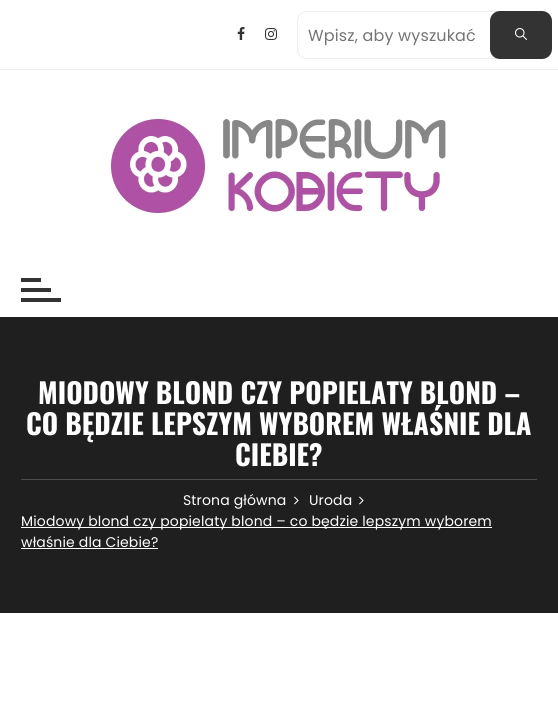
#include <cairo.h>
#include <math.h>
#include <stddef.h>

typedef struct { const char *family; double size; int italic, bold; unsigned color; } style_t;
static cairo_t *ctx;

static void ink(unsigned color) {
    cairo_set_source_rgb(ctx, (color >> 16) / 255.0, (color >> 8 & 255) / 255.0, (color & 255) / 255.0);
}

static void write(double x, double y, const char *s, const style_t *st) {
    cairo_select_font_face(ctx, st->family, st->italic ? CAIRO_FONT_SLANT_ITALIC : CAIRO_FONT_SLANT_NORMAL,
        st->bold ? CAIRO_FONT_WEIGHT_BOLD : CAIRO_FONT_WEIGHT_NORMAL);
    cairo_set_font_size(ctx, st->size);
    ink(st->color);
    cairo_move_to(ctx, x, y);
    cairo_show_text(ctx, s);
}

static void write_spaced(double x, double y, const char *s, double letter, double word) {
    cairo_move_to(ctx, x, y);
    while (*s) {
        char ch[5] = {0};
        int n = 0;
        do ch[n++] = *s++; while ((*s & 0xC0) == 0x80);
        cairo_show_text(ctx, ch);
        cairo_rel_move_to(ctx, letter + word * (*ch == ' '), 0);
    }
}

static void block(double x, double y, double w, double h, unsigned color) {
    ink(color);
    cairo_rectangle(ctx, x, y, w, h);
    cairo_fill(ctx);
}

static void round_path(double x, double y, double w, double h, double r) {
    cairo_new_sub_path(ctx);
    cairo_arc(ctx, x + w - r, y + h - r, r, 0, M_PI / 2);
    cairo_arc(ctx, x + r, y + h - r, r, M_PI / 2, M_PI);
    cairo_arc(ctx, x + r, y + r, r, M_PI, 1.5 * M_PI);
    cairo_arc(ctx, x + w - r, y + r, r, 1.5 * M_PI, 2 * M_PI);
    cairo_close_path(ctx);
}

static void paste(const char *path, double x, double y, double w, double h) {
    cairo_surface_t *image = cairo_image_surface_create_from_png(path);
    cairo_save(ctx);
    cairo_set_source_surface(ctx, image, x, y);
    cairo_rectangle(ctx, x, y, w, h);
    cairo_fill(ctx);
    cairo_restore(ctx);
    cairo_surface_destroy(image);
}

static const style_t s1 = {"Oswald", 28, 0, 1, 0xffffff};

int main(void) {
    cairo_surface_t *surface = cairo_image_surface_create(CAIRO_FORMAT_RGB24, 558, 709);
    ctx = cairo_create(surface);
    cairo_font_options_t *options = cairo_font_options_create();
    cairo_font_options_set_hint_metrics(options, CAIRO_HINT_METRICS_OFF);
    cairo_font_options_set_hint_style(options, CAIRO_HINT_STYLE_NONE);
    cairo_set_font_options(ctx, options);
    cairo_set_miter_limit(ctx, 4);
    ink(0xffffff);
    cairo_paint(ctx);
    block(0, 69, 558, 1, 0xeeeeee);
    paste("pic1.png", 237, 27, 8, 13);
    paste("pic2.png", 265, 28, 12, 12);
    round_path(297.5, 11.5, 249, 47, 9.5);
    cairo_set_line_width(ctx, 1);
    cairo_stroke(ctx);
    cairo_select_font_face(ctx, "Poppins", CAIRO_FONT_SLANT_NORMAL, CAIRO_FONT_WEIGHT_NORMAL);
    cairo_set_font_size(ctx, 16);
    ink(0x757575);
    write_spaced(308, 41, "Wpisz, aby wyszukać", 0.15, 0);
    ink(0x333333);
    round_path(490, 11, 62, 48, 10);
    cairo_fill(ctx);
    paste("pic3.png", 515, 28, 12, 12);
    paste("pic4.png", 110, 118, 336, 96);
    block(21, 278, 20, 4, 0x333333);
    block(21, 288, 30, 4, 0x333333);
    block(21, 298, 40, 4, 0x333333);
    block(0, 317, 558, 296, 0x1f1f1f);
    block(21, 479, 516, 1, 0x4c4c4c);
    write(38, 404, "MIODOWY BLOND CZY POPIELATY BLOND –", &s1);
    write(26, 435, "CO BĘDZIE LEPSZYM WYBOREM WŁAŚNIE DLA", &s1);
    write(235, 466, "CIEBIE?", &s1);
    cairo_select_font_face(ctx, "Poppins", CAIRO_FONT_SLANT_NORMAL, CAIRO_FONT_WEIGHT_NORMAL);
    cairo_set_font_size(ctx, 14);
    write_spaced(183, 505, "Strona główna", 0.15, 0);
    paste("pic5.png", 294, 496, 5, 9);
    write_spaced(309, 505, "Uroda", 0.15, 0);
    paste("pic5.png", 359, 496, 5, 9);
    block(21, 527, 471, 1, 0xffffff);
    write_spaced(21, 526, "Miodowy blond czy popielaty blond – co będzie lepszym wyborem", 0.15, 0);
    write_spaced(21, 547, "właśnie dla Ciebie?", 0.15, 0);
    block(21, 548, 137, 1, 0xffffff);
    cairo_surface_write_to_png(surface, "screenshot.png");
    cairo_font_options_destroy(options);
    cairo_destroy(ctx);
    cairo_surface_destroy(surface);
    return 0;
}
